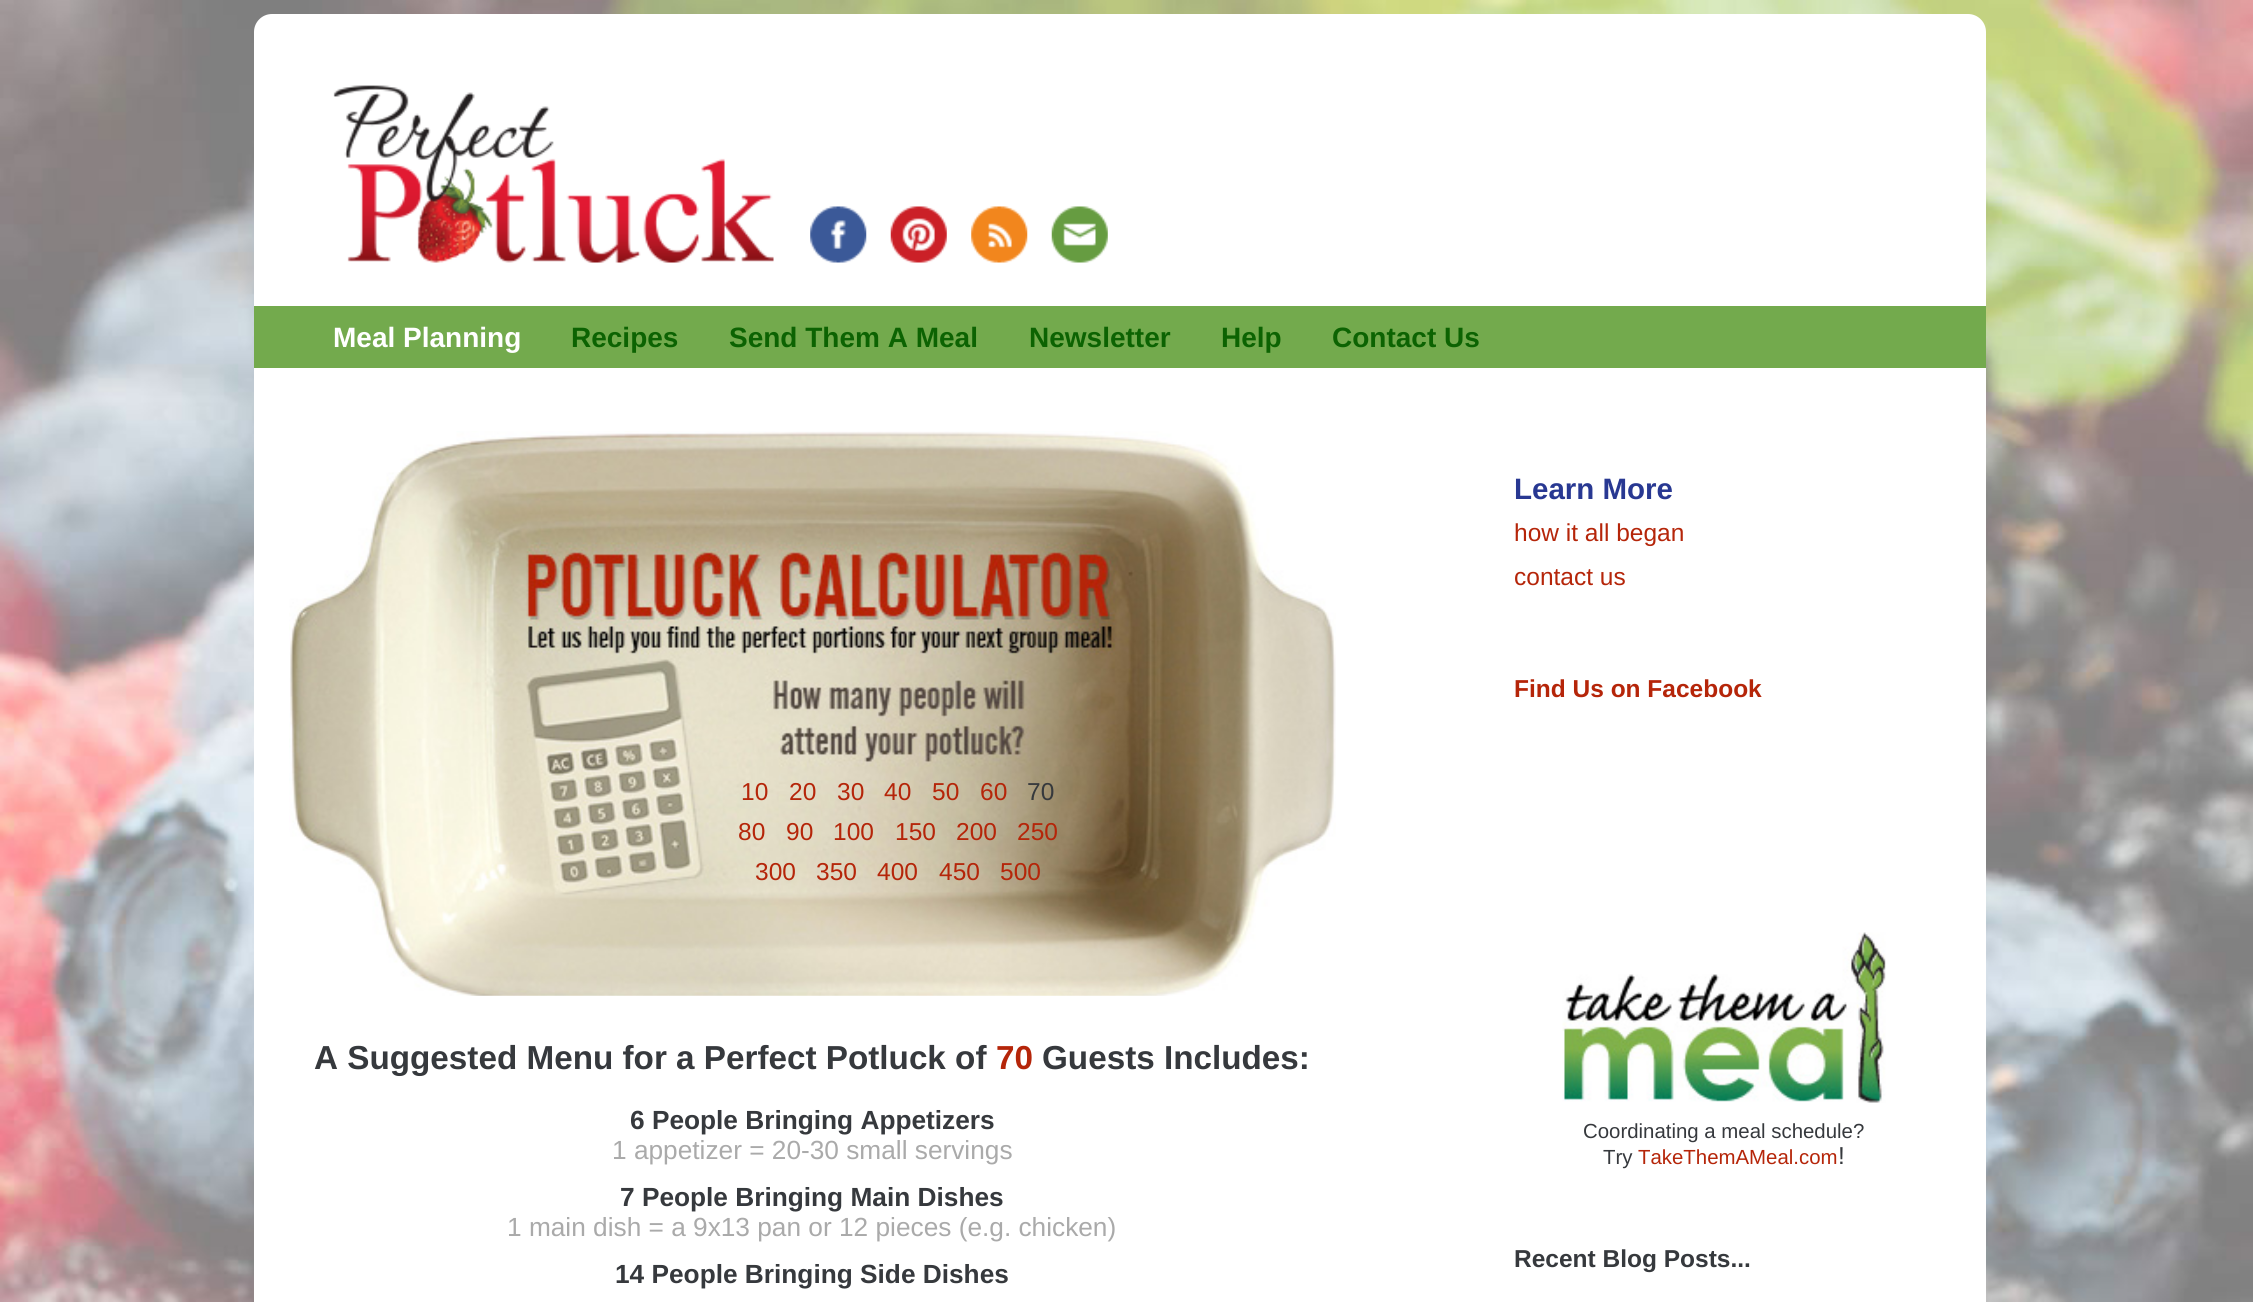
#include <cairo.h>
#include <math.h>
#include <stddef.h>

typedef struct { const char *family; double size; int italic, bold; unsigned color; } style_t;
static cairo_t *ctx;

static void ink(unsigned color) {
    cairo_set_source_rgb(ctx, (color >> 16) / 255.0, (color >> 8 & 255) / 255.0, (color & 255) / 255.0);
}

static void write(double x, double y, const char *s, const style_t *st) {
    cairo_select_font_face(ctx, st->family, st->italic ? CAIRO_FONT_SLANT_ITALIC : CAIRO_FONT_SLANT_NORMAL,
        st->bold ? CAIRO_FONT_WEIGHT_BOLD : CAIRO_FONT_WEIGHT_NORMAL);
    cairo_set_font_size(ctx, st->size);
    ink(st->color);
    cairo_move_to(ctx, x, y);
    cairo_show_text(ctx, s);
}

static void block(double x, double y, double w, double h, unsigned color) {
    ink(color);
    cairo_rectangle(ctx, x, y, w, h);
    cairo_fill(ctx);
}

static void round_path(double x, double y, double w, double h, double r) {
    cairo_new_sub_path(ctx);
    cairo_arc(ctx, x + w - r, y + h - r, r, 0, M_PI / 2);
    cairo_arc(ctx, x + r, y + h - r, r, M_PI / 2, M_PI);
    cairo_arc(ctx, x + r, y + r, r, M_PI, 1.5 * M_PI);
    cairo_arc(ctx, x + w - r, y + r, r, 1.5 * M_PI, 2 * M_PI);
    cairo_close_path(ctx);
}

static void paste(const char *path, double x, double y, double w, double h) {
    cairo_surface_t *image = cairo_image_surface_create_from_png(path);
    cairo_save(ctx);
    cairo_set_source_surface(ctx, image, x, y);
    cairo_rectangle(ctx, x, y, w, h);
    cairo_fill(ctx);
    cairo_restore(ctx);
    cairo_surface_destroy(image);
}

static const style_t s1 = {"Liberation Sans", 28, 0, 1, 0xffffff};
static const style_t s2 = {"Liberation Sans", 28, 0, 1, 0x0c6302};
static const style_t s3 = {"Liberation Sans", 24.5, 0, 0, 0xb52509};
static const style_t s4 = {"Liberation Sans", 24.5, 0, 0, 0x36393d};
static const style_t s5 = {"Liberation Sans", 33.25, 0, 1, 0x36393d};
static const style_t s6 = {"Liberation Sans", 33.25, 0, 1, 0xb52509};
static const style_t s7 = {"Liberation Sans", 26.25, 0, 1, 0x36393d};
static const style_t s8 = {"Liberation Sans", 26.25, 0, 0, 0xaaaaaa};
static const style_t s9 = {"Liberation Sans", 29.5, 0, 1, 0x283892};
static const style_t s10 = {"Liberation Sans", 24.5, 0, 1, 0xb52509};
static const style_t s11 = {"Liberation Sans", 20.4, 0, 0, 0x36393d};
static const style_t s12 = {"Liberation Sans", 20.4, 0, 0, 0xb52509};
static const style_t s13 = {"Liberation Sans", 24.5, 0, 1, 0x36393d};

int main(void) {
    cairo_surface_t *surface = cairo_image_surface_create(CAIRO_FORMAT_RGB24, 2253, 1302);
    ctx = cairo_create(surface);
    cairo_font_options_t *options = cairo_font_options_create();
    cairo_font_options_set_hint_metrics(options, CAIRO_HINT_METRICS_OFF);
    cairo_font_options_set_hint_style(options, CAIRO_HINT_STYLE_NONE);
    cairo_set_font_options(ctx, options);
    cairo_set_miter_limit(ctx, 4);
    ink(0xffffff);
    cairo_paint(ctx);
    paste("pic1.png", 0, 0, 2253, 1302);
    ink(0xffffff);
    round_path(254, 14, 1732, 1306, 18);
    cairo_fill(ctx);
    paste("pic2.png", 333, 85, 441, 178);
    paste("pic3.png", 810, 206, 57, 57);
    paste("pic4.png", 890, 206, 57, 57);
    paste("pic5.png", 971, 206, 57, 57);
    paste("pic6.png", 1051, 206, 57, 57);
    block(254, 306, 1732, 62, 0x73aa4d);
    write(333, 347, "Meal Planning", &s1);
    write(571, 347, "Recipes", &s2);
    write(729, 347, "Send Them A Meal", &s2);
    write(1029, 347, "Newsletter", &s2);
    write(1221, 347, "Help", &s2);
    write(1332, 347, "Contact Us", &s2);
    paste("pic7.png", 289, 431, 1047, 565);
    write(741, 800, "10", &s3);
    write(789, 800, "20", &s3);
    write(837, 800, "30", &s3);
    write(884, 800, "40", &s3);
    write(932, 800, "50", &s3);
    write(980, 800, "60", &s3);
    write(1027, 800, "70", &s4);
    write(738, 840, "80", &s3);
    write(786, 840, "90", &s3);
    write(833, 840, "100", &s3);
    write(895, 840, "150", &s3);
    write(956, 840, "200", &s3);
    write(1017, 840, "250", &s3);
    write(755, 880, "300", &s3);
    write(816, 880, "350", &s3);
    write(877, 880, "400", &s3);
    write(939, 880, "450", &s3);
    write(1000, 880, "500", &s3);
    write(314, 1069, "A Suggested Menu for a Perfect Potluck of", &s5);
    write(996, 1069, "70", &s6);
    write(1042, 1069, "Guests Includes:", &s5);
    write(630, 1129, "6 People Bringing Appetizers", &s7);
    write(612, 1159, "1 appetizer = 20-30 small servings", &s8);
    write(620, 1206, "7 People Bringing Main Dishes", &s7);
    write(507, 1236, "1 main dish = a 9x13 pan or 12 pieces (e.g. chicken)", &s8);
    write(615, 1283, "14 People Bringing Side Dishes", &s7);
    write(1514, 499, "Learn More", &s9);
    write(1514, 541, "how it all began", &s3);
    write(1514, 585, "contact us", &s3);
    write(1514, 697, "Find Us on Facebook", &s10);
    paste("pic8.png", 1562, 932, 324, 171);
    write(1583, 1138, "Coordinating a meal schedule?", &s11);
    write(1603, 1164, "Try", &s11);
    write(1638, 1164, "TakeThemAMeal.com", &s12);
    write(1838, 1164, "!", &s4);
    write(1514, 1267, "Recent Blog Posts...", &s13);
    cairo_surface_write_to_png(surface, "screenshot.png");
    cairo_font_options_destroy(options);
    cairo_destroy(ctx);
    cairo_surface_destroy(surface);
    return 0;
}
